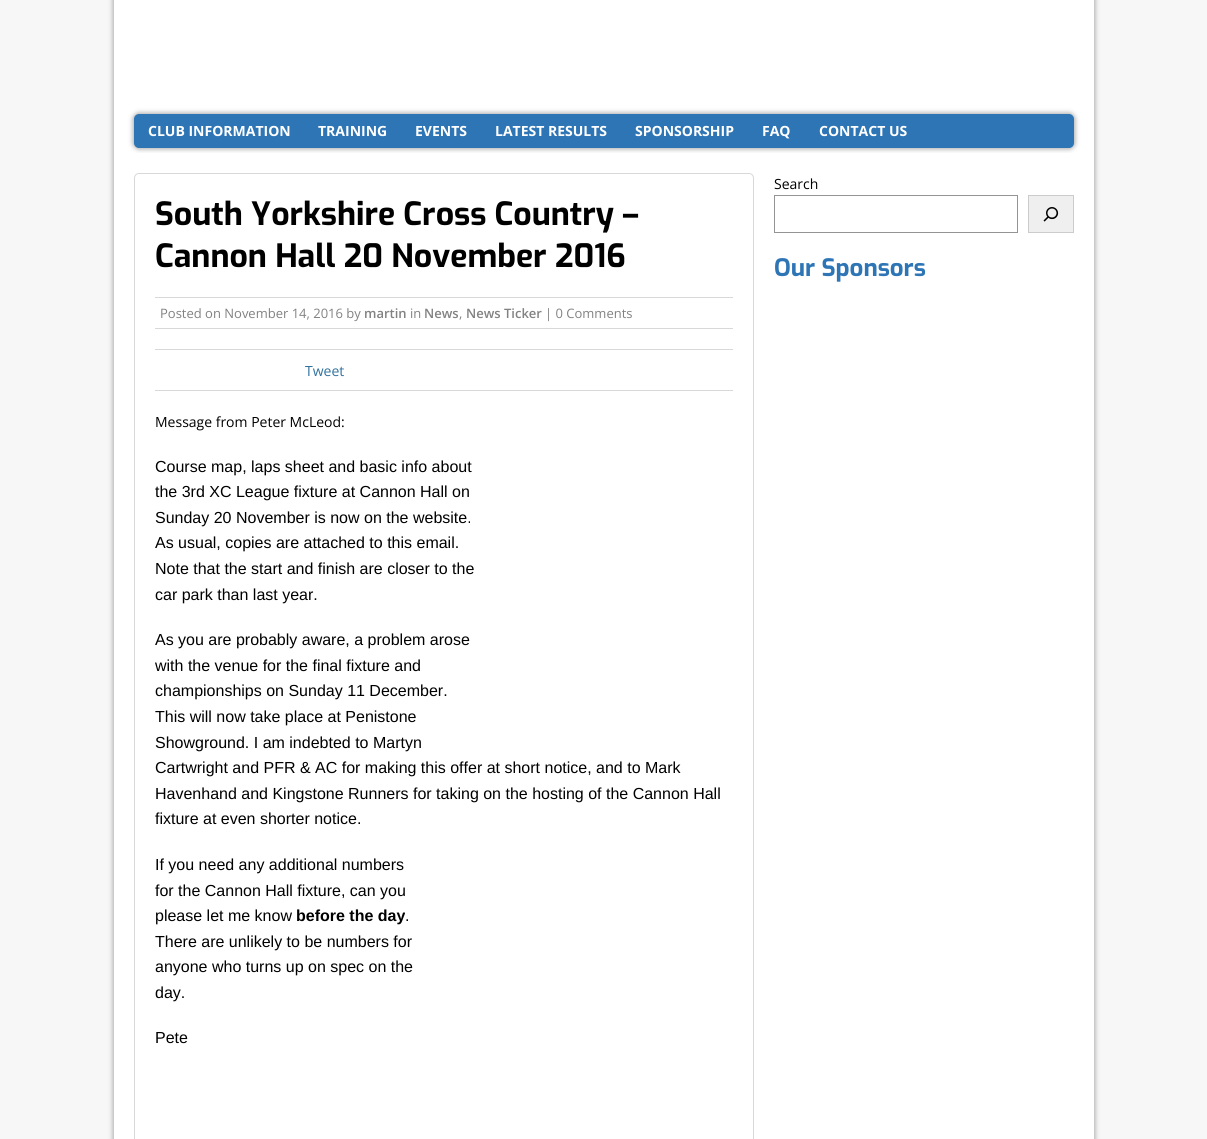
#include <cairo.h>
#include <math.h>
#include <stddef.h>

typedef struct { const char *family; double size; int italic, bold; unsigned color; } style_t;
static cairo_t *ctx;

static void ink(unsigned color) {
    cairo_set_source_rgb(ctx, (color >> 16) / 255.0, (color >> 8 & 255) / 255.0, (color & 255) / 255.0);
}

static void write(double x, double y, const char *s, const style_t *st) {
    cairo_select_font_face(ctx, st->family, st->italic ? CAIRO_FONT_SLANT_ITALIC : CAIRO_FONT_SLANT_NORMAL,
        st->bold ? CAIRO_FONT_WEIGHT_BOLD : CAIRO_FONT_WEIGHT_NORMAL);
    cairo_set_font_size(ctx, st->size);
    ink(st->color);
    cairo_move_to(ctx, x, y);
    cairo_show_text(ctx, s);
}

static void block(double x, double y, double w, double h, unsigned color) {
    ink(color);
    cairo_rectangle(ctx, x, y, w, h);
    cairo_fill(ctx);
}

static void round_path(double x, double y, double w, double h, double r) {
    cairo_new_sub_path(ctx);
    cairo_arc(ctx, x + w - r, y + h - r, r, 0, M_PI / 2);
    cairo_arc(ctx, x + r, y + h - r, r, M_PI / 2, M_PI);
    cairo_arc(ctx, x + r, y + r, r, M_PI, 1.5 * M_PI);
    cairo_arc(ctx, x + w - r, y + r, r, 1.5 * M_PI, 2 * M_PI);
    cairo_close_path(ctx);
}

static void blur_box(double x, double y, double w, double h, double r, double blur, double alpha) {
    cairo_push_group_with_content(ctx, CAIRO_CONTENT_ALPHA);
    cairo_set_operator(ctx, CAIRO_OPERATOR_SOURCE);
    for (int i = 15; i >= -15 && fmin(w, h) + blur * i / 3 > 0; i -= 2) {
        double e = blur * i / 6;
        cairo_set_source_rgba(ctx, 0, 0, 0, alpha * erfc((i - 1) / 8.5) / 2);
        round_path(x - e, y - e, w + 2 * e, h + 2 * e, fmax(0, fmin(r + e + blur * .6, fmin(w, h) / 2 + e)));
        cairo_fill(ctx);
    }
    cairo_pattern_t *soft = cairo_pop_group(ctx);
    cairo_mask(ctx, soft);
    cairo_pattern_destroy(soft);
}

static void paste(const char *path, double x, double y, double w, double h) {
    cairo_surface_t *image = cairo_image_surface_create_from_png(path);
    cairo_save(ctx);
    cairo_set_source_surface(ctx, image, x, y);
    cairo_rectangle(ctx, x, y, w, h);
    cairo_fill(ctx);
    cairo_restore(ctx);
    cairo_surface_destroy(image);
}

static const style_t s1 = {"Open Sans", 14, 0, 1, 0xffffff};
static const style_t s2 = {"Exo", 32, 0, 1, 0x000000};
static const style_t s3 = {"Open Sans", 13, 0, 0, 0x828282};
static const style_t s4 = {"Open Sans SemiBold", 13, 0, 0, 0x828282};
static const style_t s5 = {"Open Sans", 14, 0, 0, 0x30719d};
static const style_t s6 = {"Open Sans", 14, 0, 0, 0x000000};
static const style_t s7 = {"Liberation Sans", 16, 0, 0, 0x000000};
static const style_t s8 = {"Liberation Sans", 16, 0, 1, 0x000000};
static const style_t s9 = {"Exo", 24, 0, 1, 0x2e75b6};

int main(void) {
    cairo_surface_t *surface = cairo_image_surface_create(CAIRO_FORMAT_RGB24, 1207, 1139);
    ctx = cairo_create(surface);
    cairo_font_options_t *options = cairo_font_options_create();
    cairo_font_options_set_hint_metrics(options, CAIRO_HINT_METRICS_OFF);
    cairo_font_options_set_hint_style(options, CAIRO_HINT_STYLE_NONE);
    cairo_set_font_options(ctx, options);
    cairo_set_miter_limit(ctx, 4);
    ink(0xf7f7f7);
    cairo_paint(ctx);
    ink(0xa8a8a8);
    blur_box(113, -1, 982, 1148, 0, 2.5, 1);
    block(114, 0, 980, 153, 0xffffff);
    ink(0xa8a8a8);
    blur_box(133, 113, 942, 36, 6, 2.5, 1);
    ink(0x2e75b6);
    round_path(134, 114, 940, 34, 5);
    cairo_fill(ctx);
    write(148, 136, "CLUB INFORMATION", &s1);
    write(318, 136, "TRAINING", &s1);
    write(415, 136, "EVENTS", &s1);
    write(495, 136, "LATEST RESULTS", &s1);
    write(635, 136, "SPONSORSHIP", &s1);
    write(762, 136, "FAQ", &s1);
    write(819, 136, "CONTACT US", &s1);
    block(114, 153, 980, 986, 0xffffff);
    round_path(134.5, 173.5, 619, 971, 4.5);
    ink(0xd8d8d8);
    cairo_set_line_width(ctx, 1);
    cairo_stroke(ctx);
    write(155, 225, "South Yorkshire Cross Country –", &s2);
    write(155, 267, "Cannon Hall 20 November 2016", &s2);
    block(155, 297, 578, 1, 0xd8d8d8);
    block(155, 328, 578, 1, 0xd8d8d8);
    write(160, 318, "Posted on November 14, 2016 by", &s3);
    write(364, 318, "martin", &s4);
    write(410, 318, "in", &s3);
    write(424, 318, "News", &s4);
    write(459, 318, ",", &s3);
    write(466, 318, "News Ticker", &s4);
    write(545, 318, "| 0 Comments", &s3);
    block(155, 349, 578, 1, 0xd8d8d8);
    block(155, 390, 578, 1, 0xd8d8d8);
    write(305, 376, "Tweet", &s5);
    write(155, 427, "Message from Peter McLeod:", &s6);
    write(155, 472, "Course map, laps sheet and basic info about", &s7);
    write(155, 497, "the 3rd XC League fixture at Cannon Hall on", &s7);
    write(155, 523, "Sunday 20 November is now on the website.", &s7);
    write(155, 548, "As usual, copies are attached to this email.", &s7);
    write(155, 574, "Note that the start and finish are closer to the", &s7);
    write(155, 600, "car park than last year.", &s7);
    write(155, 645, "As you are probably aware, a problem arose", &s7);
    write(155, 671, "with the venue for the final fixture and", &s7);
    write(155, 696, "championships on Sunday 11 December.", &s7);
    write(155, 722, "This will now take place at Penistone", &s7);
    write(155, 748, "Showground. I am indebted to Martyn", &s7);
    write(155, 773, "Cartwright and PFR & AC for making this offer at short notice, and to Mark", &s7);
    write(155, 799, "Havenhand and Kingstone Runners for taking on the hosting of the Cannon Hall", &s7);
    write(155, 824, "fixture at even shorter notice.", &s7);
    write(155, 870, "If you need any additional numbers", &s7);
    write(155, 896, "for the Cannon Hall fixture, can you", &s7);
    write(155, 921, "please let me know", &s7);
    write(296, 921, "before the day", &s8);
    write(405, 921, ".", &s7);
    write(155, 947, "There are unlikely to be numbers for", &s7);
    write(155, 972, "anyone who turns up on spec on the", &s7);
    write(155, 998, "day.", &s7);
    write(155, 1043, "Pete", &s7);
    write(774, 189, "Search", &s6);
    cairo_rectangle(ctx, 774.5, 195.5, 243, 37);
    ink(0x949494);
    cairo_stroke(ctx);
    ink(0xefefef);
    cairo_rectangle(ctx, 1028.5, 195.5, 45, 37);
    cairo_fill_preserve(ctx);
    ink(0xcccccc);
    cairo_stroke(ctx);
    paste("pic1.png", 1043, 207, 16, 15);
    write(774, 276, "Our Sponsors", &s9);
    cairo_surface_write_to_png(surface, "screenshot.png");
    cairo_font_options_destroy(options);
    cairo_destroy(ctx);
    cairo_surface_destroy(surface);
    return 0;
}
